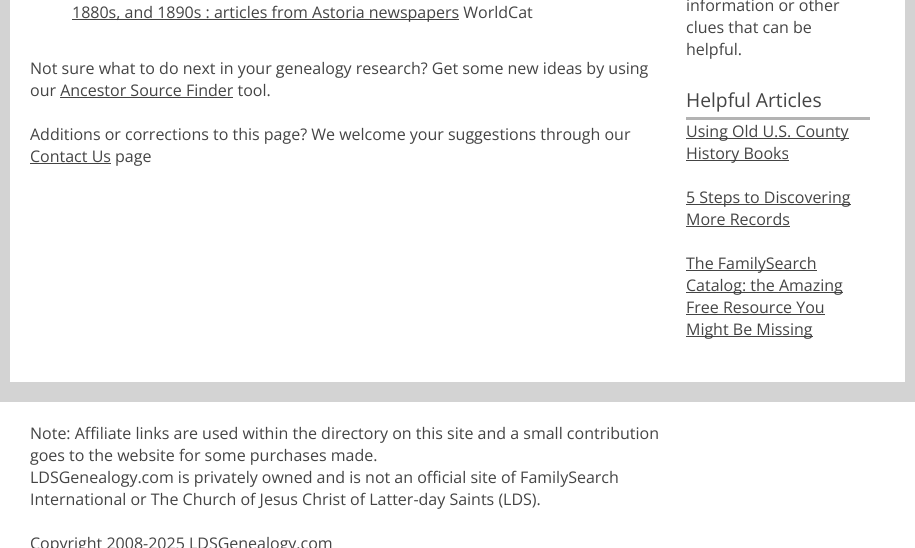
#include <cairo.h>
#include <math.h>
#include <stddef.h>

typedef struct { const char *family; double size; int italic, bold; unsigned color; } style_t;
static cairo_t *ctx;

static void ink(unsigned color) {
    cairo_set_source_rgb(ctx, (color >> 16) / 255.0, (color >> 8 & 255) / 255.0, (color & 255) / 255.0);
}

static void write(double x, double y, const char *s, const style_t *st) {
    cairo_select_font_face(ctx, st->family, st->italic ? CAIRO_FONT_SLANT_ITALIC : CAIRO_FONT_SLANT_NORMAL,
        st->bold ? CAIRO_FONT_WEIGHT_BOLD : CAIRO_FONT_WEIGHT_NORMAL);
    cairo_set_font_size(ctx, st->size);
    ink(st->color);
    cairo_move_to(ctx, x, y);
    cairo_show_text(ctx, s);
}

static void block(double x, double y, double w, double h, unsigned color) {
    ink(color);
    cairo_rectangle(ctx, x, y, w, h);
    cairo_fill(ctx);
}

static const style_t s1 = {"Open Sans", 16, 0, 0, 0x444444};
static const style_t s2 = {"Open Sans", 19.25, 0, 0, 0x444444};

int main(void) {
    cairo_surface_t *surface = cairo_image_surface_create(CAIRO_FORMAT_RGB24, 915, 548);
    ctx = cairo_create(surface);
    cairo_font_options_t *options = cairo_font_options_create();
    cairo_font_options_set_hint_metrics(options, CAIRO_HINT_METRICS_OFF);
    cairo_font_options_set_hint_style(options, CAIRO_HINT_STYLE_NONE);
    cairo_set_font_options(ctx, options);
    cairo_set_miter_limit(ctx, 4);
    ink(0xd3d3d3);
    cairo_paint(ctx);
    block(10, 0, 895, 382, 0xffffff);
    block(72, 19, 387, 1, 0x444444);
    write(72, 18, "1880s, and 1890s : articles from Astoria newspapers WorldCat", &s1);
    write(30, 74, "Not sure what to do next in your genealogy research? Get some new ideas by using", &s1);
    write(30, 96, "our Ancestor Source Finder tool.", &s1);
    block(60, 97, 173, 1, 0x444444);
    write(30, 140, "Additions or corrections to this page? We welcome your suggestions through our", &s1);
    block(30, 163, 81, 1, 0x444444);
    write(30, 162, "Contact Us page", &s1);
    write(686, 11, "information or other", &s1);
    write(686, 33, "clues that can be", &s1);
    write(686, 55, "helpful.", &s1);
    write(686, 107, "Helpful Articles", &s2);
    block(686, 117, 184, 3, 0xb3b3b3);
    block(686, 138, 163, 1, 0x444444);
    write(686, 137, "Using Old U.S. County", &s1);
    block(686, 160, 103, 1, 0x444444);
    write(686, 159, "History Books", &s1);
    block(686, 204, 165, 1, 0x444444);
    write(686, 203, "5 Steps to Discovering", &s1);
    write(686, 225, "More Records", &s1);
    block(686, 226, 104, 1, 0x444444);
    block(686, 270, 131, 1, 0x444444);
    write(686, 269, "The FamilySearch", &s1);
    block(686, 292, 157, 1, 0x444444);
    write(686, 291, "Catalog: the Amazing", &s1);
    write(686, 313, "Free Resource You", &s1);
    block(686, 314, 139, 1, 0x444444);
    block(686, 336, 127, 1, 0x444444);
    write(686, 335, "Might Be Missing", &s1);
    block(0, 402, 915, 146, 0xffffff);
    write(30, 439, "Note: Affiliate links are used within the directory on this site and a small contribution", &s1);
    write(30, 461, "goes to the website for some purchases made.", &s1);
    write(30, 483, "LDSGenealogy.com is privately owned and is not an official site of FamilySearch", &s1);
    write(30, 505, "International or The Church of Jesus Christ of Latter-day Saints (LDS).", &s1);
    write(30, 549, "Copyright 2008-2025 LDSGenealogy.com", &s1);
    cairo_surface_write_to_png(surface, "screenshot.png");
    cairo_font_options_destroy(options);
    cairo_destroy(ctx);
    cairo_surface_destroy(surface);
    return 0;
}
